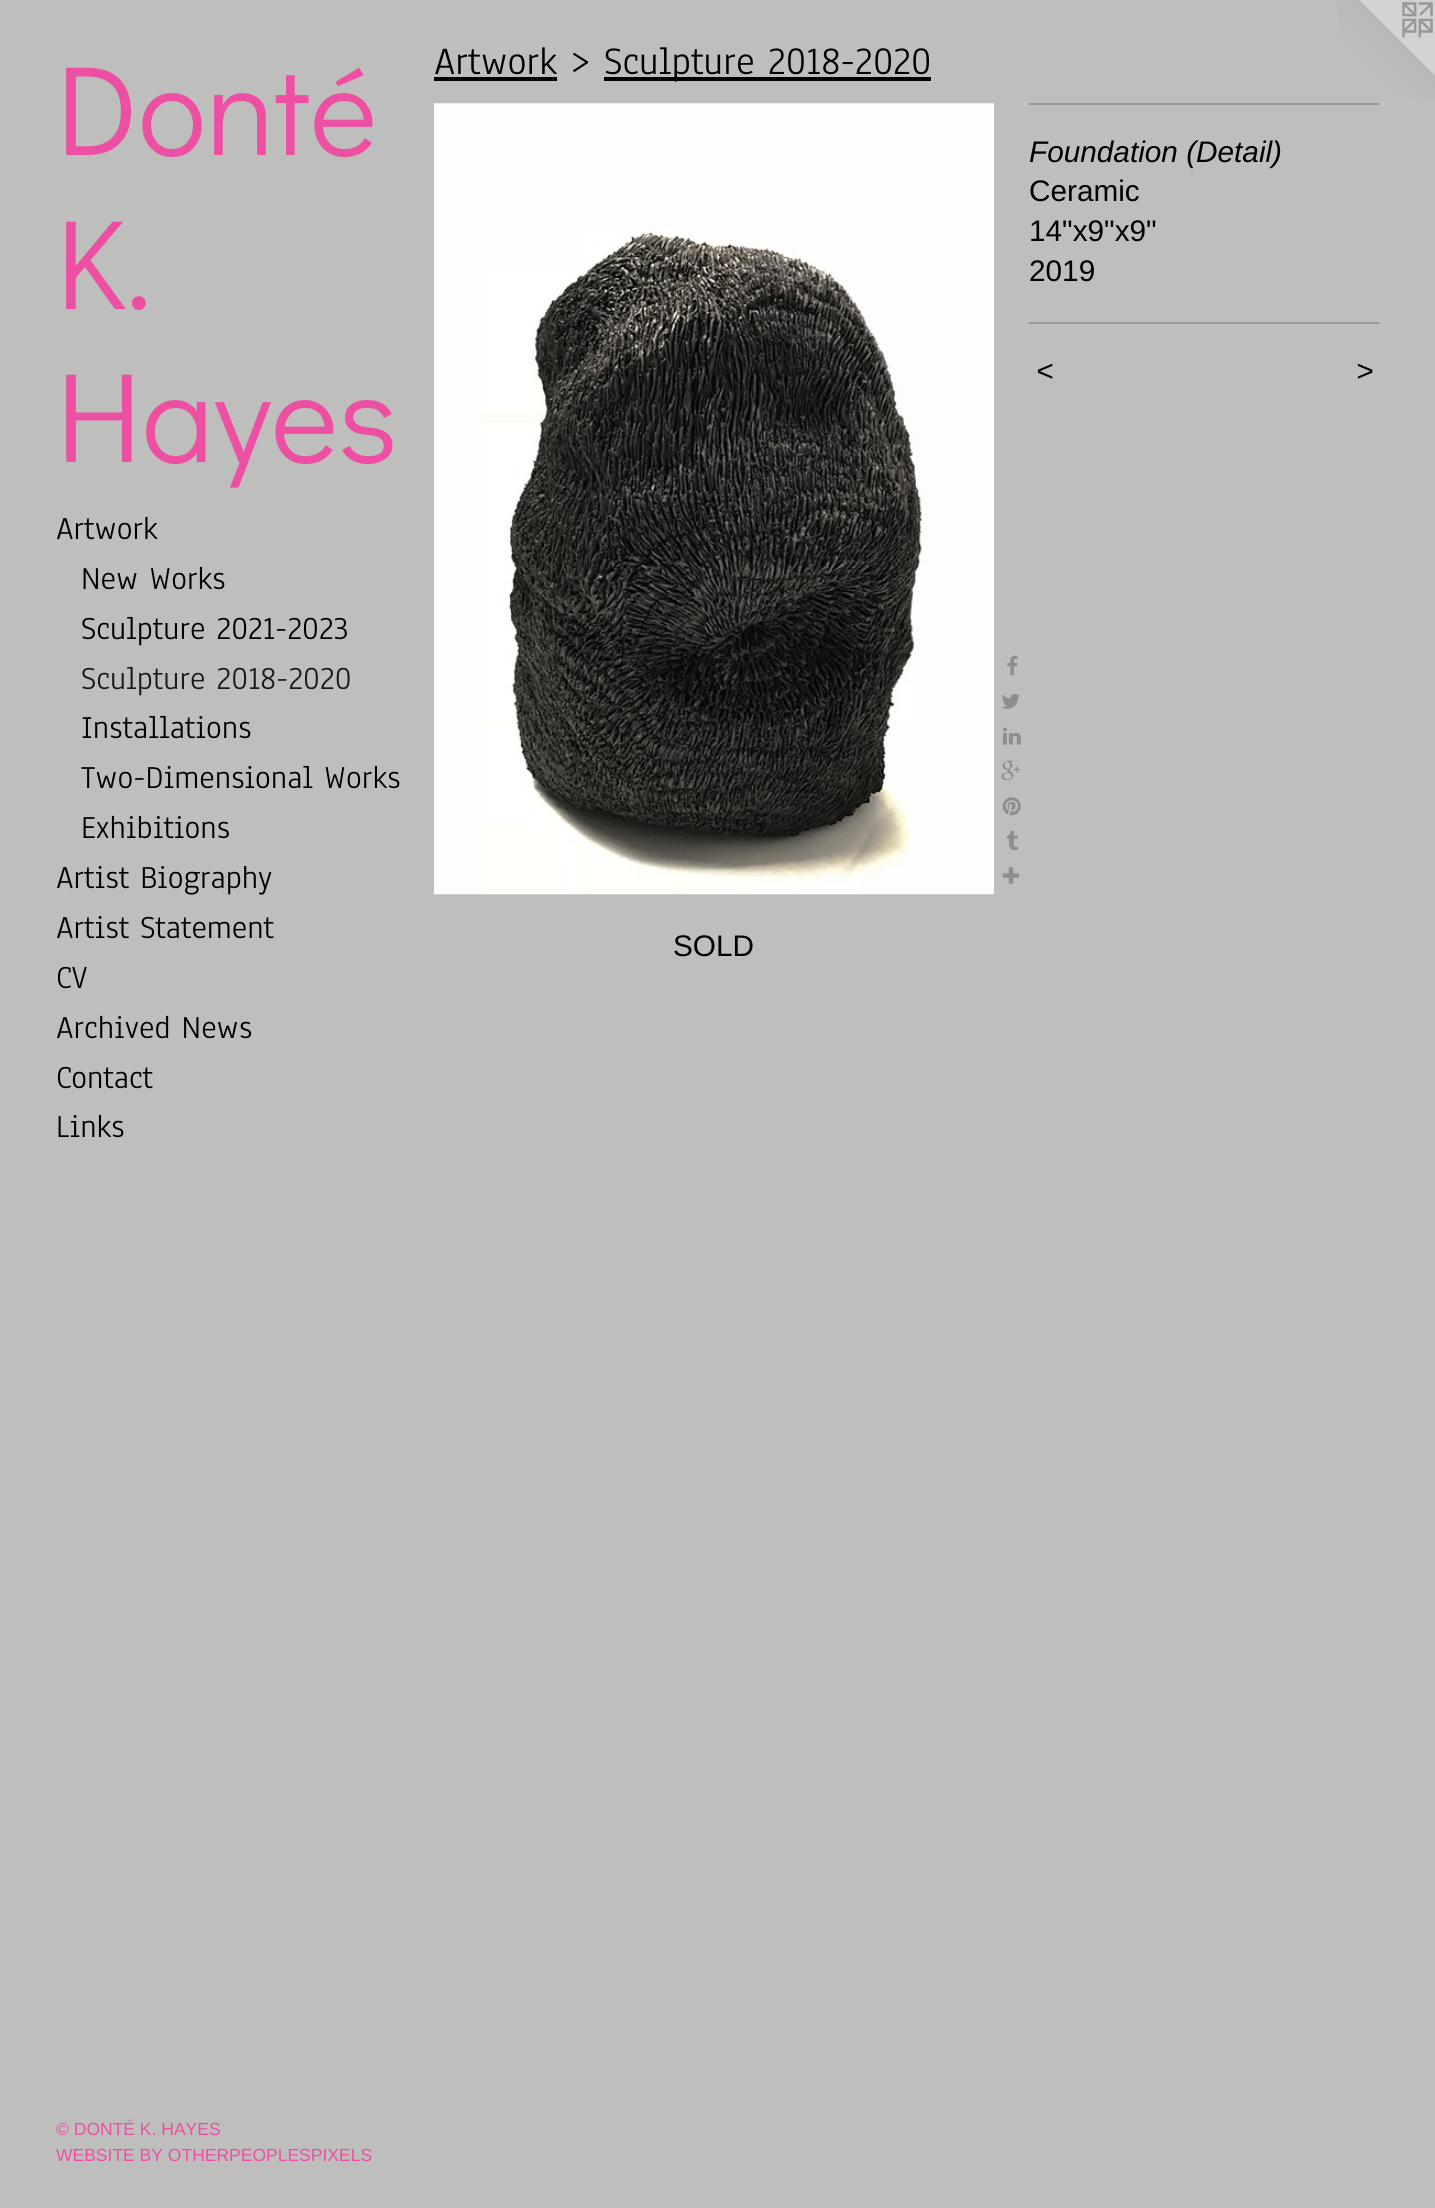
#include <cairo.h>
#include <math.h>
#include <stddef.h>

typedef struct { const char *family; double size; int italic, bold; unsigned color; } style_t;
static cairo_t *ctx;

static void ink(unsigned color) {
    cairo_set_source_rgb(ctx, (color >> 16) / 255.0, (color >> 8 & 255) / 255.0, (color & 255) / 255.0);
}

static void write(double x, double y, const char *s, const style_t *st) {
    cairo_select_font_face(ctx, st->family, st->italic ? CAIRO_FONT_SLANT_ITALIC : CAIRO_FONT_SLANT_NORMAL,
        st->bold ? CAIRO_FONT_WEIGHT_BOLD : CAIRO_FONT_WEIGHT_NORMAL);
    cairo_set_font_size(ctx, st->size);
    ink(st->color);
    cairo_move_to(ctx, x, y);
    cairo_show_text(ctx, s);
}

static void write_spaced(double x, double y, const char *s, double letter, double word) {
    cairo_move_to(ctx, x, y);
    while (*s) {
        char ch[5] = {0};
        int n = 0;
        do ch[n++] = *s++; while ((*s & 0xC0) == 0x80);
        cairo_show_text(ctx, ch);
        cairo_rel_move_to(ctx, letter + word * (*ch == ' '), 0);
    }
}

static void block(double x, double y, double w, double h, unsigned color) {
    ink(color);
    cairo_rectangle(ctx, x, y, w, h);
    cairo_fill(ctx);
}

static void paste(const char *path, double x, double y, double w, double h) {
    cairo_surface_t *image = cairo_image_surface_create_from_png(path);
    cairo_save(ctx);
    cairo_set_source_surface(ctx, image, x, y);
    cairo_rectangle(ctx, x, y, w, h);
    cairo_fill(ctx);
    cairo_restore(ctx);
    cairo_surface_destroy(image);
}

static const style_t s1 = {"Didact Gothic", 128, 0, 0, 0xed50a3};
static const style_t s2 = {"Anaheim", 33.25, 0, 0, 0x000000};
static const style_t s3 = {"Anaheim", 33.25, 0, 0, 0x1a1a1a};
static const style_t s4 = {"Liberation Sans", 17.5, 0, 0, 0xed50a3};
static const style_t s5 = {"Anaheim", 40.25, 0, 0, 0x000000};
static const style_t s6 = {"Liberation Sans", 29.75, 1, 0, 0x000000};
static const style_t s7 = {"Liberation Sans", 29.75, 0, 0, 0x000000};

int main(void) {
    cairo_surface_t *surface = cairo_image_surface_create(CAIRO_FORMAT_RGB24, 1435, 2208);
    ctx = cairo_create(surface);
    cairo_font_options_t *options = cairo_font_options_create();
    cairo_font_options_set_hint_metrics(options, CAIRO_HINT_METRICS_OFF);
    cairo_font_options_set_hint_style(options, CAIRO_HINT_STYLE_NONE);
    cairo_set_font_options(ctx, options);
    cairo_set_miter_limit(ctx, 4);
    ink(0xbebebd);
    cairo_paint(ctx);
    write(56, 155, "Donté", &s1);
    write(56, 309, "K.", &s1);
    write(56, 462, "Hayes", &s1);
    write(56, 539, "Artwork", &s2);
    write(81, 589, "New Works", &s2);
    write(81, 639, "Sculpture 2021-2023", &s2);
    write(81, 689, "Sculpture 2018-2020", &s3);
    write(81, 738, "Installations", &s2);
    write(81, 788, "Two-Dimensional Works", &s2);
    write(81, 838, "Exhibitions", &s2);
    write(56, 888, "Artist Biography", &s2);
    write(56, 938, "Artist Statement", &s2);
    write(56, 988, "CV", &s2);
    write(56, 1038, "Archived News", &s2);
    write(56, 1088, "Contact", &s2);
    write(56, 1137, "Links", &s2);
    write(56, 2135, "© DONTÉ K. HAYES", &s4);
    write(56, 2161, "WEBSITE BY OTHERPEOPLESPIXELS", &s4);
    write(434, 74, "Artwork >", &s5);
    block(434, 77, 123, 4, 0x000000);
    block(604, 77, 327, 4, 0x000000);
    write(604, 74, "Sculpture 2018-2020", &s5);
    paste("pic1.png", 434, 103, 560, 792);
    paste("pic2.png", 1007, 655, 11, 21);
    paste("pic3.png", 1002, 693, 18, 16);
    paste("pic4.png", 1002, 727, 19, 18);
    paste("pic5.png", 1001, 760, 19, 21);
    paste("pic6.png", 1002, 797, 19, 19);
    paste("pic7.png", 1007, 830, 11, 21);
    paste("pic8.png", 1002, 867, 18, 17);
    block(1029, 103, 350, 2, 0x989897);
    write(1029, 162, "Foundation (Detail)", &s6);
    write(1029, 201, "Ceramic", &s7);
    write(1029, 241, "14\"x9\"x9\"", &s7);
    write(1029, 281, "2019", &s7);
    block(1029, 322, 350, 2, 0x989897);
    cairo_select_font_face(ctx, "Liberation Sans", CAIRO_FONT_SLANT_ITALIC, CAIRO_FONT_WEIGHT_NORMAL);
    ink(0x000000);
    write_spaced(1036, 381, "<", 2, 0);
    write_spaced(1356, 381, ">", 2, 0);
    write(673, 956, "SOLD", &s7);
    paste("pic9.png", 1337, 0, 98, 98);
    cairo_surface_write_to_png(surface, "screenshot.png");
    cairo_font_options_destroy(options);
    cairo_destroy(ctx);
    cairo_surface_destroy(surface);
    return 0;
}
